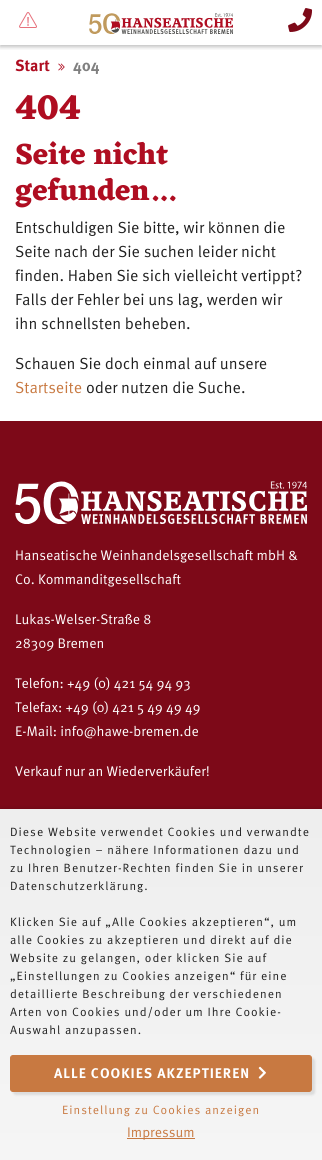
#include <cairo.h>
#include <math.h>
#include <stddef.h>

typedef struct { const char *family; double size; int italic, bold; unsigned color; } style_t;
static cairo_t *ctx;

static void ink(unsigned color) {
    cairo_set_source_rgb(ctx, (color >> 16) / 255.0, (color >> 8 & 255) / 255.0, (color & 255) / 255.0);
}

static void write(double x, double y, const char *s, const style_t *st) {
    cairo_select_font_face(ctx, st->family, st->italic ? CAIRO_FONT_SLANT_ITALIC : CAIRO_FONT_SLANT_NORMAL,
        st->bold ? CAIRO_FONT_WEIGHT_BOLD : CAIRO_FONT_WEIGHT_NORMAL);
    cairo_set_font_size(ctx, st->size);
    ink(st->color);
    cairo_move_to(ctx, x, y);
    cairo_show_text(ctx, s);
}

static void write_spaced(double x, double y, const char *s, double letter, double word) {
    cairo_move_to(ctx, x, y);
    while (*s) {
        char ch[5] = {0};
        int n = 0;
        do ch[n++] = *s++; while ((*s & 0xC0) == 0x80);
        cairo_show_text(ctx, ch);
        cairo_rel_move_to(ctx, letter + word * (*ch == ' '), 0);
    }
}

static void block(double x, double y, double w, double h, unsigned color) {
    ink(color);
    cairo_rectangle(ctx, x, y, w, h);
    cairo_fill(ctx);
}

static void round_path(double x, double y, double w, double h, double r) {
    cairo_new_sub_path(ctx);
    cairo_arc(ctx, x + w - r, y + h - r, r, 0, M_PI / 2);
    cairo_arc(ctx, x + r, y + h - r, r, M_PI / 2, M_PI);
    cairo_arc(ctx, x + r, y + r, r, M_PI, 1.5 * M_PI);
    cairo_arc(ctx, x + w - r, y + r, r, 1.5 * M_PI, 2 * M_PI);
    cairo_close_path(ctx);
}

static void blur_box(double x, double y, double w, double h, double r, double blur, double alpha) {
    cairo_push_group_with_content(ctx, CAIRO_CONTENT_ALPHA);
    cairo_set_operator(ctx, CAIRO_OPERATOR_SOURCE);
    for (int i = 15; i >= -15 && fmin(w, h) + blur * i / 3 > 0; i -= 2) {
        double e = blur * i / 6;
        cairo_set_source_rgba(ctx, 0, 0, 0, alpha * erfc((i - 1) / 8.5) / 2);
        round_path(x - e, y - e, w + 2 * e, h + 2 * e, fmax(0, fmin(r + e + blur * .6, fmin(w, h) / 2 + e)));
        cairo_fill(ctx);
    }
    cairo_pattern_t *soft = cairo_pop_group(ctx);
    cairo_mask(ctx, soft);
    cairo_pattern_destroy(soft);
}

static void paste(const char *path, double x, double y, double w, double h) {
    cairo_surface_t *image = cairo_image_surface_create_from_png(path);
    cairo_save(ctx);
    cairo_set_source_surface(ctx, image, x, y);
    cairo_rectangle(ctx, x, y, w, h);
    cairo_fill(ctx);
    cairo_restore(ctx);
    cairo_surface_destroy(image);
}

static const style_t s1 = {"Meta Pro", 16, 0, 1, 0xaf0d21};
static const style_t s2 = {"Meta Pro", 16, 0, 1, 0x808080};
static const style_t s3 = {"Eczar", 36, 0, 1, 0xaf0d21};
static const style_t s4 = {"Eczar", 30, 0, 1, 0xaf0d21};
static const style_t s5 = {"Meta Pro", 16, 0, 0, 0x202020};
static const style_t s6 = {"Meta Pro", 16, 0, 0, 0xc87941};
static const style_t s7 = {"Meta Pro", 14, 0, 0, 0xffffff};
static const style_t s8 = {"Meta Pro", 14, 0, 0, 0xc87941};

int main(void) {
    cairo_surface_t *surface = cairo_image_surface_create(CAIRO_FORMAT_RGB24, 322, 1160);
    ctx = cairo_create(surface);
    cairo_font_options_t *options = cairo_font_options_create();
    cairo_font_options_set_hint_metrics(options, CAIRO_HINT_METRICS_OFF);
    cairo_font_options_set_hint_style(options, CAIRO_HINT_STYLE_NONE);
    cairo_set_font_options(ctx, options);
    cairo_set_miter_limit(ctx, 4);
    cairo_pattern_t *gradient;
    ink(0xffffff);
    cairo_paint(ctx);
    cairo_save(ctx);
    cairo_rectangle(ctx, 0, 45, 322, 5);
    cairo_clip(ctx);
    ink(0x808080);
    blur_box(0, 2, 322, 45, 0, 2, 0.5);
    cairo_restore(ctx);
    paste("pic1.png", 19, 12, 18, 16);
    paste("pic2.png", 89, 13, 144, 21);
    paste("pic3.png", 288, 8, 25, 24);
    write(15, 71, "Start", &s1);
    paste("pic4.png", 58, 63, 7, 8);
    write(73, 71, "404", &s2);
    write(15, 119, "404", &s3);
    write(15, 164, "Seite nicht", &s4);
    write(15, 200, "gefunden...", &s4);
    write(15, 233, "Entschuldigen Sie bitte, wir können die", &s5);
    write(15, 257, "Seite nach der Sie suchen leider nicht", &s5);
    write(15, 281, "finden. Haben Sie sich vielleicht vertippt?", &s5);
    write(15, 305, "Falls der Fehler bei uns lag, werden wir", &s5);
    write(15, 329, "ihn schnellsten beheben.", &s5);
    write(15, 369, "Schauen Sie doch einmal auf unsere", &s5);
    write(15, 393, "Startseite", &s6);
    write(86, 393, "oder nutzen die Suche.", &s5);
    block(0, 421, 322, 388, 0x7d0918);
    paste("pic5.png", 15, 481, 292, 43);
    write(15, 560, "Hanseatische Weinhandelsgesellschaft mbH &", &s7);
    write(15, 584, "Co. Kommanditgesellschaft", &s7);
    write(15, 624, "Lukas-Welser-Straße 8", &s7);
    write(15, 648, "28309 Bremen", &s7);
    write(15, 688, "Telefon: +49 (0) 421 54 94 93", &s7);
    write(15, 712, "Telefax: +49 (0) 421 5 49 49 49", &s7);
    write(15, 736, "E-Mail: info@hawe-bremen.de", &s7);
    write(15, 776, "Verkauf nur an Wiederverkäufer!", &s7);
    ink(0x000000);
    blur_box(0, 809, 322, 351, 0, 2.5, 0.2);
    gradient = cairo_pattern_create_linear(161, 809, 161, 1160);
    cairo_pattern_add_color_stop_rgba(gradient, 0, 0.933, 0.933, 0.933, 1);
    cairo_pattern_add_color_stop_rgba(gradient, 1, 0.961, 0.961, 0.961, 1);
    cairo_set_source(ctx, gradient);
    cairo_pattern_destroy(gradient);
    cairo_rectangle(ctx, 0, 809, 322, 351);
    cairo_fill(ctx);
    cairo_set_font_size(ctx, 12);
    ink(0x202020);
    write_spaced(10, 836, "Diese Website verwendet Cookies und verwandte", 1, 0);
    write_spaced(10, 854, "Technologien – nähere Informationen dazu und", 1, 0);
    write_spaced(10, 872, "zu Ihren Benutzer-Rechten finden Sie in unserer", 1, 0);
    write_spaced(10, 890, "Datenschutzerklärung.", 1, 0);
    write_spaced(10, 926, "Klicken Sie auf „Alle Cookies akzeptieren“, um", 1, 0);
    write_spaced(10, 944, "alle Cookies zu akzeptieren und direkt auf die", 1, 0);
    write_spaced(10, 962, "Website zu gelangen, oder klicken Sie auf", 1, 0);
    write_spaced(10, 980, "„Einstellungen zu Cookies anzeigen“ für eine", 1, 0);
    write_spaced(10, 998, "detaillierte Beschreibung der verschiedenen", 1, 0);
    write_spaced(10, 1016, "Arten von Cookies und/oder um Ihre Cookie-", 1, 0);
    write_spaced(10, 1034, "Auswahl anzupassen.", 1, 0);
    ink(0x000000);
    blur_box(13, 1058, 302, 37, 3, 1, 0.1);
    ink(0xc87941);
    round_path(10.5, 1055.5, 301, 36, 2.5);
    cairo_fill_preserve(ctx);
    cairo_set_line_width(ctx, 1);
    cairo_stroke(ctx);
    cairo_select_font_face(ctx, "Meta Pro", CAIRO_FONT_SLANT_NORMAL, CAIRO_FONT_WEIGHT_BOLD);
    cairo_set_font_size(ctx, 14);
    ink(0xffffff);
    write_spaced(54, 1078, "ALLE COOKIES AKZEPTIEREN", 1, 0);
    paste("pic6.png", 258, 1066, 8, 13);
    cairo_select_font_face(ctx, "Meta Pro", CAIRO_FONT_SLANT_NORMAL, CAIRO_FONT_WEIGHT_NORMAL);
    cairo_set_font_size(ctx, 12);
    ink(0xc87941);
    write_spaced(62, 1114, "Einstellung zu Cookies anzeigen", 1, 0);
    block(127, 1138, 68, 1, 0xc87941);
    write(127, 1137, "Impressum", &s8);
    cairo_surface_write_to_png(surface, "screenshot.png");
    cairo_font_options_destroy(options);
    cairo_destroy(ctx);
    cairo_surface_destroy(surface);
    return 0;
}
